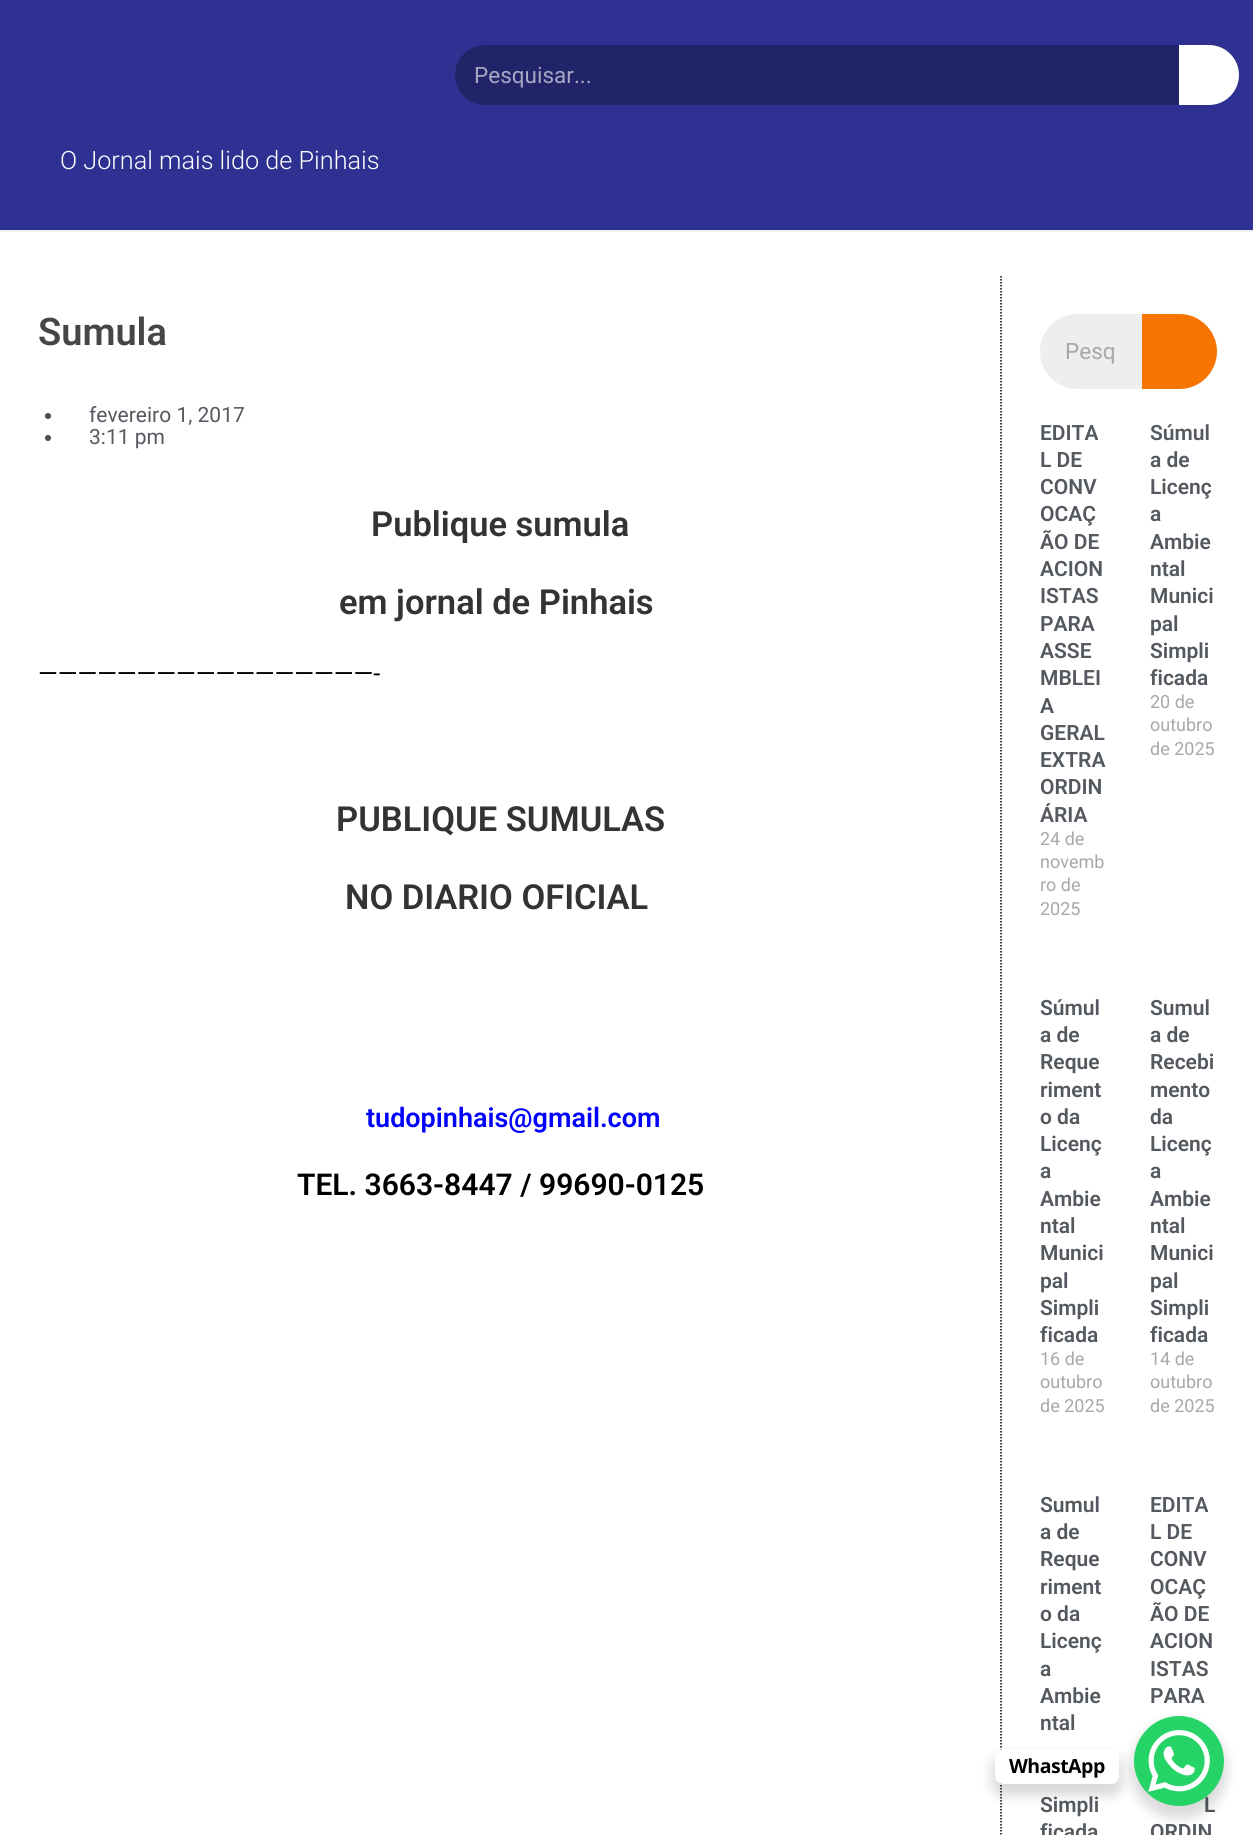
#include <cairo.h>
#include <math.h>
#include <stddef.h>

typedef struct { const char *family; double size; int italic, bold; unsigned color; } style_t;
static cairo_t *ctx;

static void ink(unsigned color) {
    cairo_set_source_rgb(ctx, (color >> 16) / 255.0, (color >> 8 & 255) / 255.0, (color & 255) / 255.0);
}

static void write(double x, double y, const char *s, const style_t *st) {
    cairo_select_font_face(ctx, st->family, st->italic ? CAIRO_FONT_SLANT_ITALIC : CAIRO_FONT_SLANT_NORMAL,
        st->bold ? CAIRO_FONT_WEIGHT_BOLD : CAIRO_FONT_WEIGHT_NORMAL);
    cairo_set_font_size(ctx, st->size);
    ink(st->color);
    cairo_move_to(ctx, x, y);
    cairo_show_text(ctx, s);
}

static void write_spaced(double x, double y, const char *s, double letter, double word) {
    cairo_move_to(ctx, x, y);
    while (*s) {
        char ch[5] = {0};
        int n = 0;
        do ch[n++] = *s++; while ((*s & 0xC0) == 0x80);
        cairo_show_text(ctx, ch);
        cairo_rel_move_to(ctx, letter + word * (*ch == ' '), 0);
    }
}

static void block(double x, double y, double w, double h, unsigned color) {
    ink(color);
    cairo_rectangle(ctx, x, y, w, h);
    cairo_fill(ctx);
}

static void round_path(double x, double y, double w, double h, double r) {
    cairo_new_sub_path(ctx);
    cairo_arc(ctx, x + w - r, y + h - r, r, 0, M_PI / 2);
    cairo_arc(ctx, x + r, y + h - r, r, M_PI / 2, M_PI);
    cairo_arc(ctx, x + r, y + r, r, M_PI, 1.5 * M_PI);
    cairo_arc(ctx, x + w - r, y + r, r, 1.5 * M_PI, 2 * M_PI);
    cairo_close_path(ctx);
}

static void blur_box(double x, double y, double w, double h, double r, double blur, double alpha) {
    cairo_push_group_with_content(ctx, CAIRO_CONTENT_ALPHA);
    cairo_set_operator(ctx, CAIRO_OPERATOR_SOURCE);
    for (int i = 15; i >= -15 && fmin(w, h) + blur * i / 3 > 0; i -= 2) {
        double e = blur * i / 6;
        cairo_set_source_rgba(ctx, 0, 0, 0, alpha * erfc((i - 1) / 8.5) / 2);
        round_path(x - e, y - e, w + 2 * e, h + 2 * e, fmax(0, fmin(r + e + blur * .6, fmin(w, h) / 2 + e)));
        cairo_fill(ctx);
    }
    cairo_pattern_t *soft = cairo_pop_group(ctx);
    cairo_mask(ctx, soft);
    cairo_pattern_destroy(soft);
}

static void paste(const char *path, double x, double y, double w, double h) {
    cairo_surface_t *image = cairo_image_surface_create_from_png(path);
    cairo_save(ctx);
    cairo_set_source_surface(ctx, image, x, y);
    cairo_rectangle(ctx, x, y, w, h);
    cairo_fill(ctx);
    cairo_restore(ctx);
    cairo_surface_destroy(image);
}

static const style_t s1 = {"Roboto", 22.5, 0, 0, 0xa7a7c3};
static const style_t s2 = {"Roboto Light", 25.25, 0, 0, 0xffffff};
static const style_t s3 = {"Roboto SemiBold", 38, 0, 0, 0x464646};
static const style_t s4 = {"Roboto", 21, 0, 0, 0x54595f};
static const style_t s5 = {"Roboto SemiBold", 34.5, 0, 0, 0x333333};
static const style_t s6 = {"Roboto", 25.25, 0, 0, 0x000000};
static const style_t s7 = {"Roboto SemiBold", 27, 0, 0, 0x0000ff};
static const style_t s8 = {"Roboto SemiBold", 30, 0, 0, 0x000000};
static const style_t s9 = {"Roboto", 22.5, 0, 0, 0xa8a8a9};
static const style_t s10 = {"Roboto SemiBold", 21, 0, 0, 0x54595f};
static const style_t s11 = {"Roboto", 18, 0, 0, 0xa8a8a9};

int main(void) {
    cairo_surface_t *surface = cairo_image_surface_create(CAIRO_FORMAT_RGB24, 1253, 1835);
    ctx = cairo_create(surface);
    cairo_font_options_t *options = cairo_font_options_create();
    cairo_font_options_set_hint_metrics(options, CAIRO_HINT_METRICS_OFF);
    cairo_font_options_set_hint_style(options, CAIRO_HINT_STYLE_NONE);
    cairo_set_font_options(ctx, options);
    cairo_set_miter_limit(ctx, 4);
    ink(0xffffff);
    cairo_paint(ctx);
    block(0, 230, 1253, 2, 0xf1f1f1);
    block(0, 0, 1253, 230, 0x2e3192);
    ink(0x222469);
    round_path(455, 45, 784, 60, 30);
    cairo_fill(ctx);
    write(474, 83, "Pesquisar...", &s1);
    ink(0xffffff);
    cairo_new_path(ctx);
    cairo_move_to(ctx, 1179, 45);
    cairo_line_to(ctx, 1209, 45);
    cairo_curve_to(ctx, 1225.5, 45, 1239, 58.5, 1239, 75);
    cairo_curve_to(ctx, 1239, 91.5, 1225.5, 105, 1209, 105);
    cairo_line_to(ctx, 1179, 105);
    cairo_close_path(ctx);
    cairo_fill(ctx);
    write(60, 169, "O Jornal mais lido de Pinhais", &s2);
    cairo_new_path(ctx);
    cairo_move_to(ctx, 1001, 276);
    cairo_line_to(ctx, 1001, 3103.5);
    ink(0x000000);
    cairo_set_line_width(ctx, 1.5);
    cairo_set_dash(ctx, (double[]){1.5, 1.5}, 2, 0);
    cairo_stroke(ctx);
    write(38, 345, "Sumula", &s3);
    ink(0x4a4a4a);
    cairo_new_path(ctx);
    cairo_arc(ctx, 48, 416, 3, 0, 2 * M_PI);
    cairo_fill(ctx);
    write(89, 422, "fevereiro 1, 2017", &s4);
    ink(0x4a4a4a);
    cairo_new_path(ctx);
    cairo_arc(ctx, 48, 438, 3, 0, 2 * M_PI);
    cairo_fill(ctx);
    write(89, 444, "3:11 pm", &s4);
    write(371, 536, "Publique sumula", &s5);
    write(339, 614, "em jornal de Pinhais", &s5);
    write(38, 682, "—————————————————-", &s6);
    write(336, 831, "PUBLIQUE SUMULAS", &s5);
    write(345, 909, "NO DIARIO OFICIAL", &s5);
    write(366, 1127, "tudopinhais@gmail.com", &s7);
    write(297, 1195, "TEL. 3663-8447 / 99690-0125", &s8);
    ink(0xeceeef);
    round_path(1040, 314, 177, 75, 37.5);
    cairo_fill(ctx);
    write(1065, 359, "Pesq", &s9);
    ink(0xf67400);
    cairo_new_path(ctx);
    cairo_move_to(ctx, 1142, 314);
    cairo_line_to(ctx, 1179.5, 314);
    cairo_curve_to(ctx, 1200, 314, 1217, 331, 1217, 351.5);
    cairo_curve_to(ctx, 1217, 372, 1200, 389, 1179.5, 389);
    cairo_line_to(ctx, 1142, 389);
    cairo_close_path(ctx);
    cairo_fill(ctx);
    write(1040, 440, "EDITA", &s10);
    write(1040, 467, "L DE", &s10);
    write(1040, 494, "CONV", &s10);
    write(1040, 521, "OCAÇ", &s10);
    write(1040, 549, "ÃO DE", &s10);
    write(1040, 576, "ACION", &s10);
    write(1040, 603, "ISTAS", &s10);
    write(1040, 631, "PARA", &s10);
    write(1040, 658, "ASSE", &s10);
    write(1040, 685, "MBLEI", &s10);
    write(1040, 713, "A", &s10);
    write(1040, 740, "GERAL", &s10);
    write(1040, 767, "EXTRA", &s10);
    write(1040, 794, "ORDIN", &s10);
    write(1040, 822, "ÁRIA", &s10);
    write(1040, 845, "24 de", &s11);
    write(1040, 868, "novemb", &s11);
    write(1040, 891, "ro de", &s11);
    write(1040, 915, "2025", &s11);
    write(1150, 440, "Súmul", &s10);
    write(1150, 467, "a de", &s10);
    write(1150, 494, "Licenç", &s10);
    write(1150, 521, "a", &s10);
    write(1150, 549, "Ambie", &s10);
    write(1150, 576, "ntal", &s10);
    write(1150, 603, "Munici", &s10);
    write(1150, 631, "pal", &s10);
    write(1150, 658, "Simpli", &s10);
    write(1150, 685, "ficada", &s10);
    write(1150, 708, "20 de", &s11);
    write(1150, 731, "outubro", &s11);
    write(1150, 755, "de 2025", &s11);
    write(1040, 1015, "Súmul", &s10);
    write(1040, 1042, "a de", &s10);
    write(1040, 1069, "Reque", &s10);
    write(1040, 1097, "riment", &s10);
    write(1040, 1124, "o da", &s10);
    write(1040, 1151, "Licenç", &s10);
    write(1040, 1178, "a", &s10);
    write(1040, 1206, "Ambie", &s10);
    write(1040, 1233, "ntal", &s10);
    write(1040, 1260, "Munici", &s10);
    write(1040, 1288, "pal", &s10);
    write(1040, 1315, "Simpli", &s10);
    write(1040, 1342, "ficada", &s10);
    write(1040, 1365, "16 de", &s11);
    write(1040, 1388, "outubro", &s11);
    write(1040, 1412, "de 2025", &s11);
    write(1150, 1015, "Sumul", &s10);
    write(1150, 1042, "a de", &s10);
    write(1150, 1069, "Recebi", &s10);
    write(1150, 1097, "mento", &s10);
    write(1150, 1124, "da", &s10);
    write(1150, 1151, "Licenç", &s10);
    write(1150, 1178, "a", &s10);
    write(1150, 1206, "Ambie", &s10);
    write(1150, 1233, "ntal", &s10);
    write(1150, 1260, "Munici", &s10);
    write(1150, 1288, "pal", &s10);
    write(1150, 1315, "Simpli", &s10);
    write(1150, 1342, "ficada", &s10);
    write(1150, 1365, "14 de", &s11);
    write(1150, 1388, "outubro", &s11);
    write(1150, 1412, "de 2025", &s11);
    write(1040, 1512, "Sumul", &s10);
    write(1040, 1539, "a de", &s10);
    write(1040, 1566, "Reque", &s10);
    write(1040, 1594, "riment", &s10);
    write(1040, 1621, "o da", &s10);
    write(1040, 1648, "Licenç", &s10);
    write(1040, 1676, "a", &s10);
    write(1040, 1703, "Ambie", &s10);
    write(1040, 1730, "ntal", &s10);
    write(1040, 1812, "Simpli", &s10);
    write(1040, 1839, "ficada", &s10);
    write(1150, 1512, "EDITA", &s10);
    write(1150, 1539, "L DE", &s10);
    write(1150, 1566, "CONV", &s10);
    write(1150, 1594, "OCAÇ", &s10);
    write(1150, 1621, "ÃO DE", &s10);
    write(1150, 1648, "ACION", &s10);
    write(1150, 1676, "ISTAS", &s10);
    write(1150, 1703, "PARA", &s10);
    write(1204, 1812, "L", &s10);
    write(1150, 1839, "ORDIN", &s10);
    ink(0x000000);
    blur_box(1131, 1722, 96, 96, 48, 6, 0.15);
    ink(0x25d366);
    cairo_arc(ctx, 1179, 1761, 45, 0, 2 * M_PI);
    cairo_fill(ctx);
    ink(0x000000);
    blur_box(992, 1755, 130, 41, 11, 6, 0.15);
    ink(0xffffff);
    round_path(995, 1749, 124, 35, 8);
    cairo_fill(ctx);
    cairo_select_font_face(ctx, "Open Sans", CAIRO_FONT_SLANT_NORMAL, CAIRO_FONT_WEIGHT_BOLD);
    cairo_set_font_size(ctx, 19.5);
    ink(0x000000);
    write_spaced(1009, 1773, "WhastApp", -0.5, 0);
    paste("pic1.png", 1148, 1730, 62, 62);
    cairo_surface_write_to_png(surface, "screenshot.png");
    cairo_font_options_destroy(options);
    cairo_destroy(ctx);
    cairo_surface_destroy(surface);
    return 0;
}
